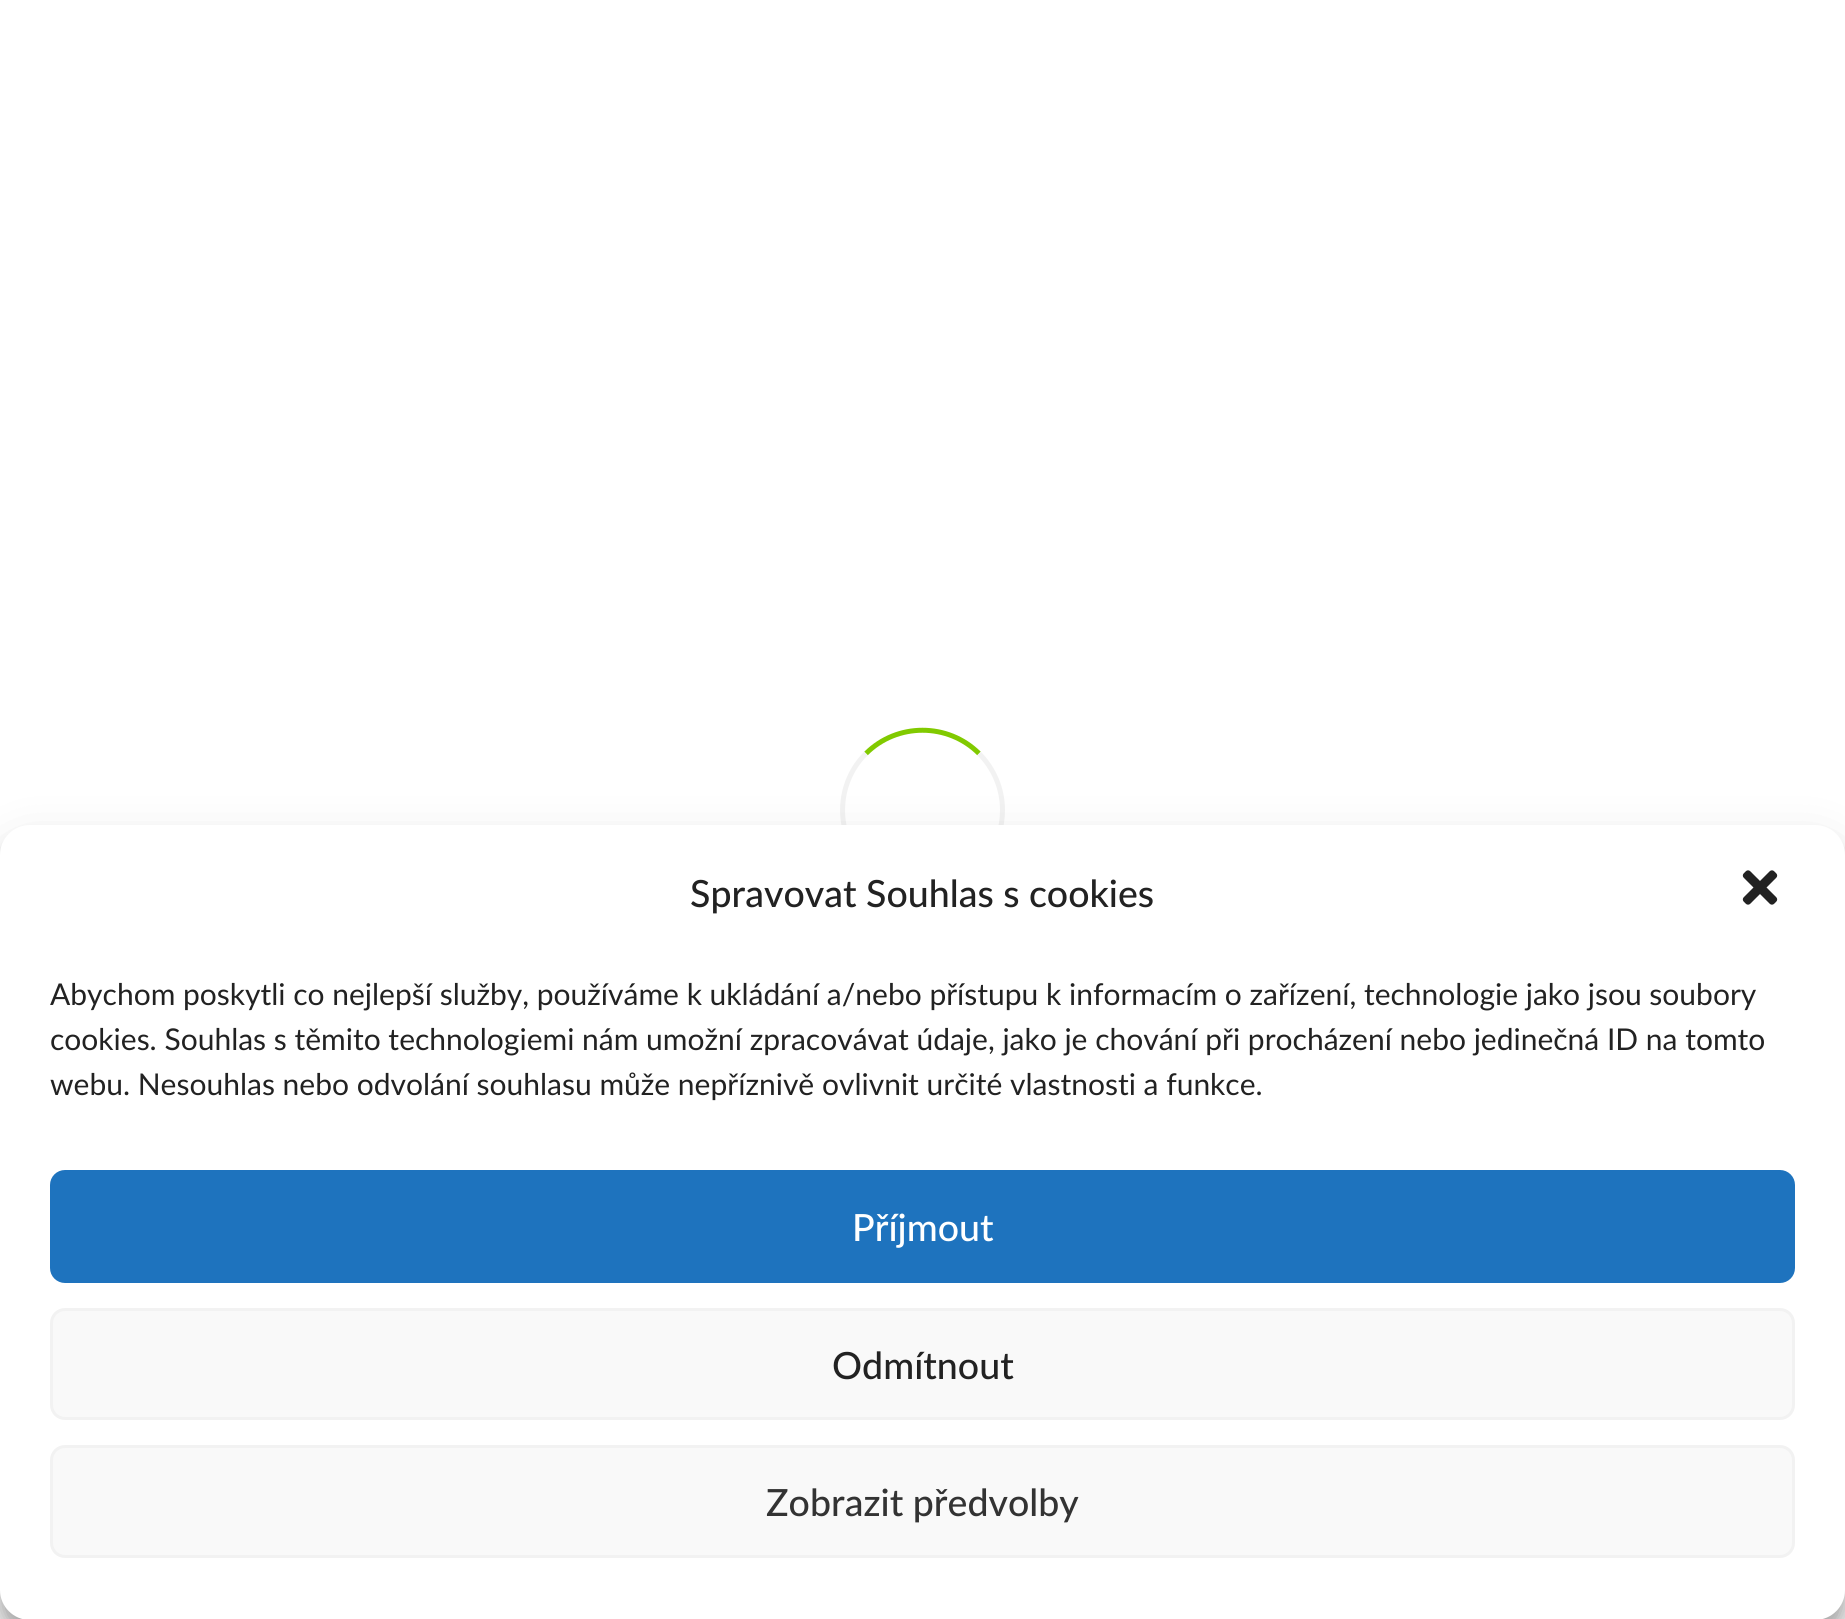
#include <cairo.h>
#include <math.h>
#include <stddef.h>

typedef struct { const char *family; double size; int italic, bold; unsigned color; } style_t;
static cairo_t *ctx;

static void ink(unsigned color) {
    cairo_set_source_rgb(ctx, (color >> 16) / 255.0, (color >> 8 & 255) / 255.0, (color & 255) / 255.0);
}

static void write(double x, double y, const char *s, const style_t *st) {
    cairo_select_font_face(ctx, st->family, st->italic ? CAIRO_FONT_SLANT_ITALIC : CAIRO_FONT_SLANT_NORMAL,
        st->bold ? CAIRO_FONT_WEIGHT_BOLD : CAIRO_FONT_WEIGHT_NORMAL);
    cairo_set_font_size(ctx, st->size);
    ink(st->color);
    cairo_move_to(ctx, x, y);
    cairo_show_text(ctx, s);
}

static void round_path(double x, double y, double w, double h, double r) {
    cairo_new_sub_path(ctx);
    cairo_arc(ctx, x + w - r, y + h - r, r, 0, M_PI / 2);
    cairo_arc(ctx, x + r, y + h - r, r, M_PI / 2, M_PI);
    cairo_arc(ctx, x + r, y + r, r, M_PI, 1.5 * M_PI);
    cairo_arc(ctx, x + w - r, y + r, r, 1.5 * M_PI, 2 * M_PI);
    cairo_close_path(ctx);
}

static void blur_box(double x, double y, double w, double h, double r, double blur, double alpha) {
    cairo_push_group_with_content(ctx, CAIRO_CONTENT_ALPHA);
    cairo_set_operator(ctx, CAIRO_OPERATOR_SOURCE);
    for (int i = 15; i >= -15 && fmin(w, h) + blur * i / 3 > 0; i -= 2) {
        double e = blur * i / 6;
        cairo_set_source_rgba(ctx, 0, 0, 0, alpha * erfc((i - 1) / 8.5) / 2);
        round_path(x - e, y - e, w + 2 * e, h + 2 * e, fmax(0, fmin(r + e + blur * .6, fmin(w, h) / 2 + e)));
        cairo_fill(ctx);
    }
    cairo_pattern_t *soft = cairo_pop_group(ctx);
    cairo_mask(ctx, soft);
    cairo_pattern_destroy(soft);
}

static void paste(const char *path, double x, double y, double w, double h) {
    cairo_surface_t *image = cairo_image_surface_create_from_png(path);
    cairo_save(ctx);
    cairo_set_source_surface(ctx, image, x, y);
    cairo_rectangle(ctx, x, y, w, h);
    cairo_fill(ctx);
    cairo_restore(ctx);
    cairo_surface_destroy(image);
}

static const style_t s1 = {"Lato Medium", 37.5, 0, 0, 0x222222};
static const style_t s2 = {"Lato", 30, 0, 0, 0x222222};
static const style_t s3 = {"Lato Medium", 37.5, 0, 0, 0xffffff};
static const style_t s4 = {"Lato Medium", 37.5, 0, 0, 0x333333};

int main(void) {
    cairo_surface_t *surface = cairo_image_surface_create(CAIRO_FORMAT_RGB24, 1845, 1619);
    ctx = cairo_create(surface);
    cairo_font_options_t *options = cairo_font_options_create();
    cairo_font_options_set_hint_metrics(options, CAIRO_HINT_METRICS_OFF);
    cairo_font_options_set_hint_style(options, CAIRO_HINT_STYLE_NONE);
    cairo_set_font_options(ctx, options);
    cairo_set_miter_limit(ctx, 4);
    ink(0xffffff);
    cairo_paint(ctx);
    cairo_new_path(ctx);
    cairo_move_to(ctx, 866, 753.5);
    cairo_curve_to(ctx, 897, 722.5, 948, 722.5, 979, 753.5);
    ink(0x81ca00);
    cairo_set_line_width(ctx, 5);
    cairo_stroke(ctx);
    cairo_new_path(ctx);
    cairo_move_to(ctx, 979, 753.5);
    cairo_curve_to(ctx, 994, 768.5, 1002.5, 789, 1002.5, 810);
    cairo_curve_to(ctx, 1002.5, 881, 916, 916.5, 866, 866.5);
    cairo_curve_to(ctx, 855, 855.5, 847, 841, 844, 825.5);
    cairo_curve_to(ctx, 839, 799.5, 847, 772, 866, 753.5);
    ink(0xf2f2f2);
    cairo_stroke(ctx);
    ink(0x000000);
    blur_box(0, 840, 1845, 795, 30, 7.5, 0.23);
    blur_box(0, 850, 1845, 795, 30, 25, 0.19);
    ink(0xffffff);
    round_path(0, 825, 1845, 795, 30);
    cairo_fill(ctx);
    write(690, 907, "Spravovat Souhlas s cookies", &s1);
    paste("pic1.png", 1742, 870, 36, 35);
    write(50, 1005, "Abychom poskytli co nejlepší služby, používáme k ukládání a/nebo přístupu k informacím o zařízení, technologie jako jsou soubory", &s2);
    write(50, 1050, "cookies. Souhlas s těmito technologiemi nám umožní zpracovávat údaje, jako je chování při procházení nebo jedinečná ID na tomto", &s2);
    write(50, 1095, "webu. Nesouhlas nebo odvolání souhlasu může nepříznivě ovlivnit určité vlastnosti a funkce.", &s2);
    ink(0x1e73be);
    round_path(51.5, 1171.5, 1742, 110, 13.5);
    cairo_fill_preserve(ctx);
    cairo_set_line_width(ctx, 3);
    cairo_stroke(ctx);
    write(852, 1241, "Příjmout", &s3);
    ink(0xf9f9f9);
    round_path(51.5, 1309.5, 1742, 109, 13.5);
    cairo_fill_preserve(ctx);
    ink(0xf2f2f2);
    cairo_stroke(ctx);
    write(832, 1379, "Odmítnout", &s1);
    ink(0xf9f9f9);
    round_path(51.5, 1446.5, 1742, 110, 13.5);
    cairo_fill_preserve(ctx);
    ink(0xf2f2f2);
    cairo_stroke(ctx);
    write(766, 1516, "Zobrazit předvolby", &s4);
    cairo_surface_write_to_png(surface, "screenshot.png");
    cairo_font_options_destroy(options);
    cairo_destroy(ctx);
    cairo_surface_destroy(surface);
    return 0;
}
